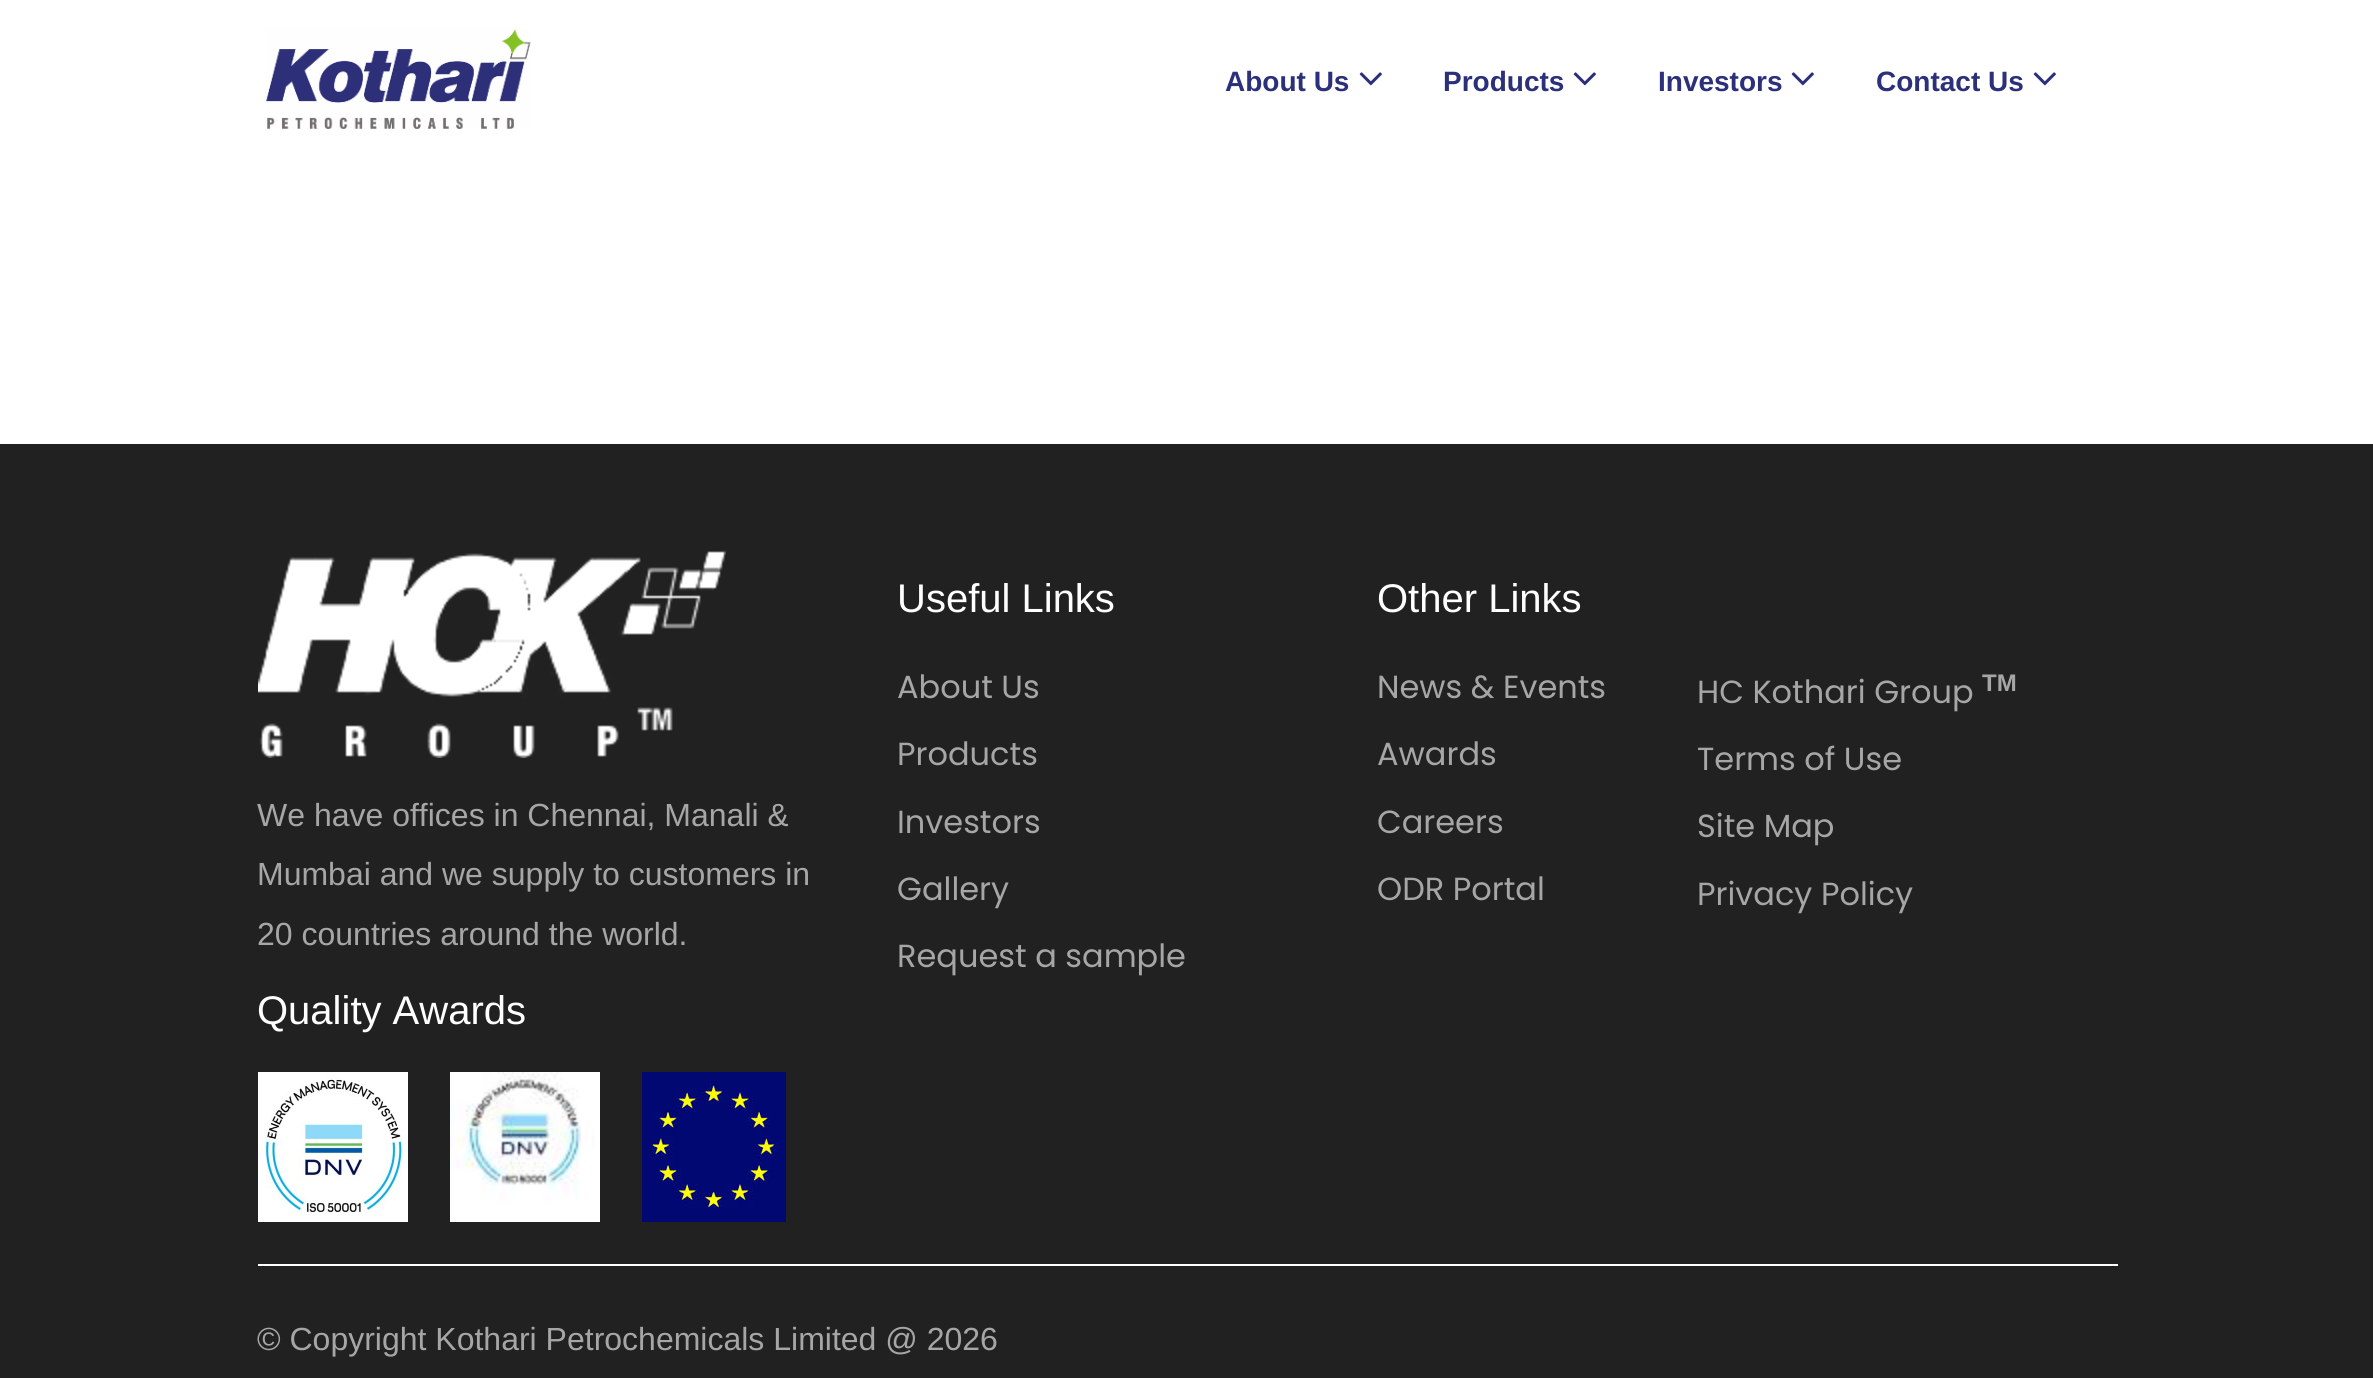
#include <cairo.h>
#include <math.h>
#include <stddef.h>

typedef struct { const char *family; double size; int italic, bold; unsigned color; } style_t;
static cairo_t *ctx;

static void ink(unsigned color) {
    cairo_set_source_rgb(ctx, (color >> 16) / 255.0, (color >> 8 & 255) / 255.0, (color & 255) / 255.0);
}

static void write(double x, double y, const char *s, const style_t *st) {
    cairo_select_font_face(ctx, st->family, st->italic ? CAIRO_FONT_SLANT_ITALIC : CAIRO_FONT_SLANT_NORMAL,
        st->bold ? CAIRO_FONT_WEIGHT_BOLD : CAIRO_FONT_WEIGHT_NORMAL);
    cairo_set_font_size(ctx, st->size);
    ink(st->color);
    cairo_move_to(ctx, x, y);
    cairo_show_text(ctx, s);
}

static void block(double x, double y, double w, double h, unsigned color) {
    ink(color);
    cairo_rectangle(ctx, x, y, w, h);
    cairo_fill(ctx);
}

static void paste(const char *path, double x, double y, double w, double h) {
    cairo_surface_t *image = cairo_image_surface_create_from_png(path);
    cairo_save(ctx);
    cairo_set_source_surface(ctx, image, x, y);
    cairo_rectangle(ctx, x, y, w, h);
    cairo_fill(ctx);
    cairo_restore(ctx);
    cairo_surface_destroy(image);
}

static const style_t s1 = {"Liberation Sans", 28, 0, 1, 0x2c307a};
static const style_t s2 = {"Liberation Sans", 32, 0, 0, 0xa6a6a6};
static const style_t s3 = {"Liberation Sans", 40, 0, 0, 0xffffff};
static const style_t s4 = {"Poppins", 32, 0, 0, 0xa6a6a6};
static const style_t s5 = {"Liberation Sans", 24, 0, 1, 0xa6a6a6};

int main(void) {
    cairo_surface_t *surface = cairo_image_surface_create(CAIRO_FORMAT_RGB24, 2373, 1378);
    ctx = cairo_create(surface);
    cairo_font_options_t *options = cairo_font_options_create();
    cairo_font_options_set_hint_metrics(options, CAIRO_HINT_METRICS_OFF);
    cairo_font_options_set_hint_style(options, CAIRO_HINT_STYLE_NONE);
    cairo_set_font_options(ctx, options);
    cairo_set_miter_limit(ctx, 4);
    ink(0xffffff);
    cairo_paint(ctx);
    paste("pic1.png", 266, 29, 265, 100);
    write(1225, 91, "About Us", &s1);
    paste("pic2.png", 1359, 72, 23, 14);
    write(1443, 91, "Products", &s1);
    paste("pic2.png", 1573, 72, 23, 14);
    write(1658, 91, "Investors", &s1);
    paste("pic2.png", 1791, 72, 23, 14);
    write(1876, 91, "Contact Us", &s1);
    paste("pic2.png", 2033, 72, 23, 14);
    block(0, 444, 2373, 934, 0x212121);
    paste("pic3.png", 258, 550, 468, 208);
    write(257, 826, "We have offices in Chennai, Manali &", &s2);
    write(257, 885, "Mumbai and we supply to customers in", &s2);
    write(257, 945, "20 countries around the world.", &s2);
    write(257, 1024, "Quality Awards", &s3);
    paste("pic4.png", 258, 1072, 150, 150);
    paste("pic5.png", 450, 1072, 150, 150);
    paste("pic6.png", 642, 1072, 144, 150);
    write(897, 612, "Useful Links", &s3);
    write(897, 698, "About Us", &s4);
    write(897, 765, "Products", &s4);
    write(897, 833, "Investors", &s4);
    write(897, 900, "Gallery", &s4);
    write(897, 967, "Request a sample", &s4);
    write(1377, 612, "Other Links", &s3);
    write(1377, 698, "News & Events", &s4);
    write(1377, 765, "Awards", &s4);
    write(1377, 833, "Careers", &s4);
    write(1377, 900, "ODR Portal", &s4);
    write(1697, 703, "HC Kothari Group", &s4);
    write(1982, 691, "TM", &s5);
    write(1697, 770, "Terms of Use", &s4);
    write(1697, 837, "Site Map", &s4);
    write(1697, 905, "Privacy Policy", &s4);
    block(258, 1264, 1860, 2, 0xffffff);
    write(257, 1350, "© Copyright Kothari Petrochemicals Limited @ 2026", &s2);
    cairo_surface_write_to_png(surface, "screenshot.png");
    cairo_font_options_destroy(options);
    cairo_destroy(ctx);
    cairo_surface_destroy(surface);
    return 0;
}
